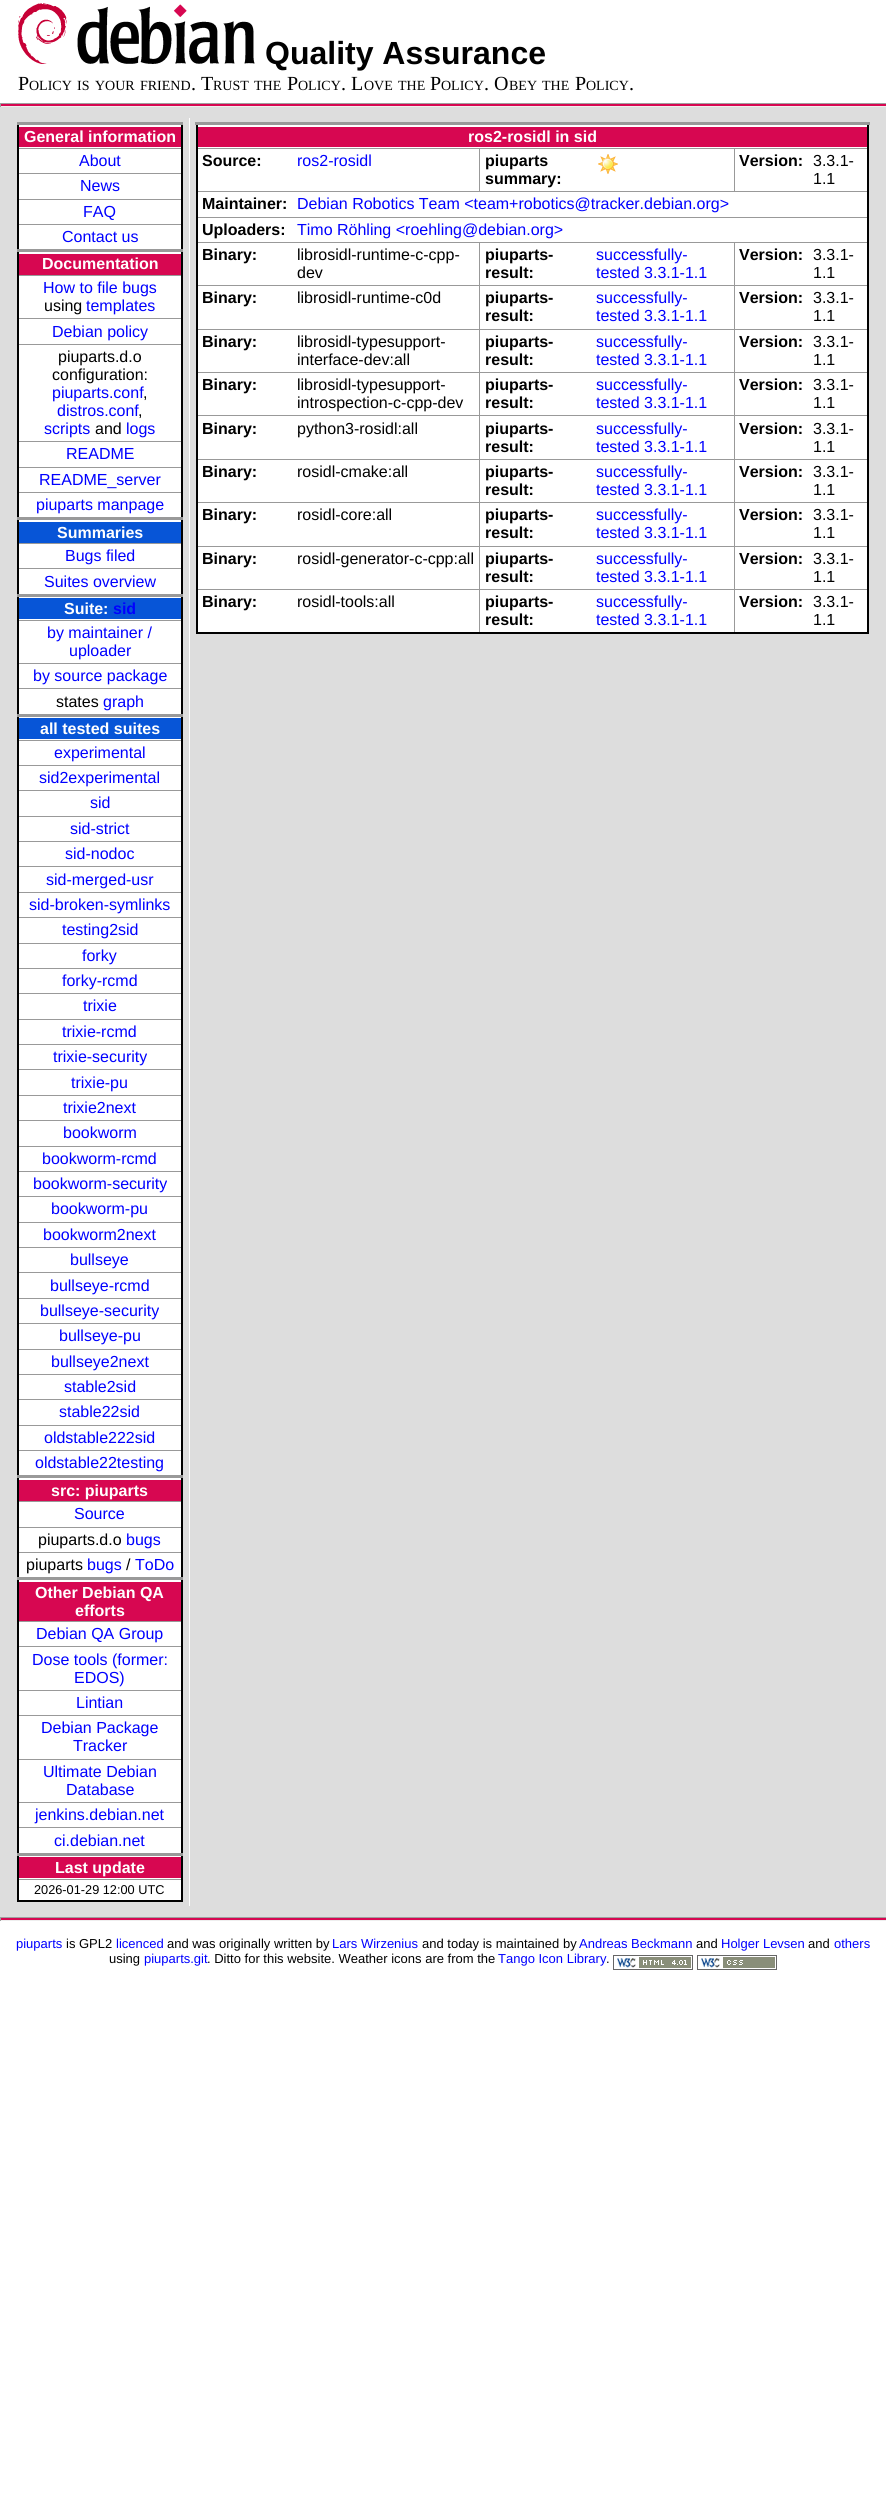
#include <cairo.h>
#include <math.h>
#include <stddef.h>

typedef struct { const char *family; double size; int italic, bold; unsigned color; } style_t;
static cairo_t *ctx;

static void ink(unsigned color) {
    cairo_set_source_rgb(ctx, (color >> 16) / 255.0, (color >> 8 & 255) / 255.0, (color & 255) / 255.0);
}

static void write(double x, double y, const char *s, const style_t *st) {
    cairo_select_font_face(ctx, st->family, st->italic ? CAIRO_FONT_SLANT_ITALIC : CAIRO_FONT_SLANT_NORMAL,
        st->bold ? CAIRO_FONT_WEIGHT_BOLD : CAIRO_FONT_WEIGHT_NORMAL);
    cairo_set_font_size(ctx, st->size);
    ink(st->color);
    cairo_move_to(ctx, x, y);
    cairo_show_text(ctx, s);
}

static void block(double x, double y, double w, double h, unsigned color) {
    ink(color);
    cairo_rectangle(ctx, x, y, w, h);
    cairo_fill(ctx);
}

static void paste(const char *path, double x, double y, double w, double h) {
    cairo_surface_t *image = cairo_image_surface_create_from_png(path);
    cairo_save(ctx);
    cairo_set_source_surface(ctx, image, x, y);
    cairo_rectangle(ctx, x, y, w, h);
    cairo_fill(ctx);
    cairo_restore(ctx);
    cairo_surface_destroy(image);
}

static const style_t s1 = {"Liberation Sans", 32, 0, 1, 0x000000};
static const style_t s2 = {"Liberation Serif", 20, 0, 0, 0x000000};
static const style_t s3 = {"Liberation Serif", 14, 0, 0, 0x000000};
static const style_t s4 = {"Liberation Sans", 16, 0, 1, 0xffffff};
static const style_t s5 = {"Liberation Sans", 16, 0, 0, 0x0000ff};
static const style_t s6 = {"Liberation Sans", 16, 0, 0, 0x000000};
static const style_t s7 = {"Liberation Sans", 16, 0, 1, 0x0000ff};
static const style_t s8 = {"Liberation Sans", 12.75, 0, 0, 0x000000};
static const style_t s9 = {"Liberation Sans", 16, 0, 1, 0x000000};
static const style_t s10 = {"Liberation Sans", 13, 0, 0, 0x0000ff};
static const style_t s11 = {"Liberation Sans", 13, 0, 0, 0x000000};

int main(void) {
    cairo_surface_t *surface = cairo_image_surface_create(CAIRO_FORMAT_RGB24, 886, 2497);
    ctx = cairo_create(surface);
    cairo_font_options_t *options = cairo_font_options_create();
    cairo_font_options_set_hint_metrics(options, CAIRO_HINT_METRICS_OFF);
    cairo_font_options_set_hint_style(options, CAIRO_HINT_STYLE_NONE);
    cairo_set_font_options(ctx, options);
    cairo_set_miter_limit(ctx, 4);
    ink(0xffffff);
    cairo_paint(ctx);
    paste("pic1.png", 18, 3, 49, 61);
    paste("pic2.png", 77, 4, 178, 60);
    write(265, 64, "Quality Assurance", &s1);
    write(18, 90, "P", &s2);
    write(29, 90, "OLICY", &s3);
    write(77, 90, "IS", &s3);
    write(95, 90, "YOUR", &s3);
    write(140, 90, "FRIEND", &s3);
    write(191, 90, ". T", &s2);
    write(213, 90, "RUST", &s3);
    write(254, 90, "THE", &s3);
    write(287, 90, "P", &s2);
    write(298, 90, "OLICY", &s3);
    write(341, 90, ". L", &s2);
    write(364, 90, "OVE", &s3);
    write(398, 90, "THE", &s3);
    write(430, 90, "P", &s2);
    write(441, 90, "OLICY", &s3);
    write(484, 90, ". O", &s2);
    write(509, 90, "BEY", &s3);
    write(542, 90, "THE", &s3);
    write(575, 90, "P", &s2);
    write(586, 90, "OLICY", &s3);
    write(629, 90, ".", &s2);
    block(0, 104, 886, 2, 0xd70751);
    block(0, 103, 886, 1, 0x9f9f9f);
    block(0, 106, 886, 1, 0xeeeeee);
    block(0, 103, 1, 4, 0x9f9f9f);
    block(0, 107, 886, 1810, 0xdddddd);
    block(189, 118, 1, 1788, 0xffffff);
    block(19, 125, 162, 1775, 0xffffff);
    block(18, 148, 164, 1, 0x999999);
    block(18, 173, 164, 1, 0x999999);
    block(18, 199, 164, 1, 0x999999);
    block(18, 224, 164, 1, 0x999999);
    block(18, 275, 164, 1, 0x999999);
    block(18, 318, 164, 1, 0x999999);
    block(18, 344, 164, 1, 0x999999);
    block(18, 441, 164, 1, 0x999999);
    block(18, 467, 164, 1, 0x999999);
    block(18, 492, 164, 1, 0x999999);
    block(18, 543, 164, 1, 0x999999);
    block(18, 568, 164, 1, 0x999999);
    block(18, 620, 164, 1, 0x999999);
    block(18, 663, 164, 1, 0x999999);
    block(18, 688, 164, 1, 0x999999);
    block(18, 740, 164, 1, 0x999999);
    block(18, 765, 164, 1, 0x999999);
    block(18, 790, 164, 1, 0x999999);
    block(18, 816, 164, 1, 0x999999);
    block(18, 841, 164, 1, 0x999999);
    block(18, 866, 164, 1, 0x999999);
    block(18, 892, 164, 1, 0x999999);
    block(18, 917, 164, 1, 0x999999);
    block(18, 943, 164, 1, 0x999999);
    block(18, 968, 164, 1, 0x999999);
    block(18, 993, 164, 1, 0x999999);
    block(18, 1019, 164, 1, 0x999999);
    block(18, 1044, 164, 1, 0x999999);
    block(18, 1069, 164, 1, 0x999999);
    block(18, 1095, 164, 1, 0x999999);
    block(18, 1120, 164, 1, 0x999999);
    block(18, 1146, 164, 1, 0x999999);
    block(18, 1171, 164, 1, 0x999999);
    block(18, 1196, 164, 1, 0x999999);
    block(18, 1222, 164, 1, 0x999999);
    block(18, 1247, 164, 1, 0x999999);
    block(18, 1272, 164, 1, 0x999999);
    block(18, 1298, 164, 1, 0x999999);
    block(18, 1323, 164, 1, 0x999999);
    block(18, 1349, 164, 1, 0x999999);
    block(18, 1374, 164, 1, 0x999999);
    block(18, 1399, 164, 1, 0x999999);
    block(18, 1425, 164, 1, 0x999999);
    block(18, 1450, 164, 1, 0x999999);
    block(18, 1501, 164, 1, 0x999999);
    block(18, 1527, 164, 1, 0x999999);
    block(18, 1552, 164, 1, 0x999999);
    block(18, 1621, 164, 1, 0x999999);
    block(18, 1646, 164, 1, 0x999999);
    block(18, 1690, 164, 1, 0x999999);
    block(18, 1715, 164, 1, 0x999999);
    block(18, 1759, 164, 1, 0x999999);
    block(18, 1802, 164, 1, 0x999999);
    block(18, 1827, 164, 1, 0x999999);
    block(18, 1879, 164, 1, 0x999999);
    block(181, 122, 2, 1780, 0x000000);
    block(17, 1900, 166, 2, 0x000000);
    block(17, 122, 2, 1780, 0x000000);
    block(19, 127, 162, 20, 0xd70751);
    block(17, 122, 166, 3, 0x999999);
    write(24, 142, "General information", &s4);
    write(79, 166, "About", &s5);
    write(80, 191, "News", &s5);
    write(83, 217, "FAQ", &s5);
    write(62, 242, "Contact us", &s5);
    block(19, 254, 162, 21, 0xd70751);
    block(17, 249, 166, 3, 0x999999);
    write(42, 269, "Documentation", &s4);
    write(43, 293, "How to file bugs", &s5);
    write(44, 311, "using", &s6);
    write(86, 311, "templates", &s5);
    write(52, 337, "Debian policy", &s5);
    write(58, 362, "piuparts.d.o", &s6);
    write(52, 380, "configuration:", &s6);
    write(52, 398, "piuparts.conf", &s5);
    write(143, 398, ",", &s6);
    write(57, 416, "distros.conf", &s5);
    write(138, 416, ",", &s6);
    write(44, 434, "scripts", &s5);
    write(95, 434, "and", &s6);
    write(126, 434, "logs", &s5);
    write(66, 459, "README", &s5);
    write(39, 485, "README_server", &s5);
    write(36, 510, "piuparts manpage", &s5);
    block(19, 522, 162, 21, 0x0755d7);
    block(17, 517, 166, 3, 0x999999);
    write(57, 538, "Summaries", &s4);
    write(65, 561, "Bugs filed", &s5);
    write(44, 587, "Suites overview", &s5);
    block(19, 598, 162, 21, 0x0755d7);
    block(17, 594, 166, 3, 0x999999);
    write(64, 614, "Suite:", &s4);
    write(113, 614, "sid", &s7);
    write(47, 638, "by maintainer /", &s5);
    write(69, 656, "uploader", &s5);
    write(33, 681, "by source package", &s5);
    write(56, 707, "states", &s6);
    write(103, 707, "graph", &s5);
    block(19, 718, 162, 21, 0x0755d7);
    block(17, 714, 166, 3, 0x999999);
    write(40, 734, "all tested suites", &s4);
    write(54, 758, "experimental", &s5);
    write(39, 783, "sid2experimental", &s5);
    write(90, 808, "sid", &s5);
    write(70, 834, "sid-strict", &s5);
    write(65, 859, "sid-nodoc", &s5);
    write(46, 885, "sid-merged-usr", &s5);
    write(29, 910, "sid-broken-symlinks", &s5);
    write(62, 935, "testing2sid", &s5);
    write(82, 961, "forky", &s5);
    write(62, 986, "forky-rcmd", &s5);
    write(83, 1011, "trixie", &s5);
    write(62, 1037, "trixie-rcmd", &s5);
    write(53, 1062, "trixie-security", &s5);
    write(71, 1088, "trixie-pu", &s5);
    write(63, 1113, "trixie2next", &s5);
    write(63, 1138, "bookworm", &s5);
    write(42, 1164, "bookworm-rcmd", &s5);
    write(33, 1189, "bookworm-security", &s5);
    write(51, 1214, "bookworm-pu", &s5);
    write(43, 1240, "bookworm2next", &s5);
    write(70, 1265, "bullseye", &s5);
    write(50, 1291, "bullseye-rcmd", &s5);
    write(40, 1316, "bullseye-security", &s5);
    write(59, 1341, "bullseye-pu", &s5);
    write(51, 1367, "bullseye2next", &s5);
    write(64, 1392, "stable2sid", &s5);
    write(59, 1417, "stable22sid", &s5);
    write(44, 1443, "oldstable222sid", &s5);
    write(35, 1468, "oldstable22testing", &s5);
    block(19, 1480, 162, 21, 0xd70751);
    block(17, 1475, 166, 3, 0x999999);
    write(51, 1496, "src: piuparts", &s4);
    write(74, 1519, "Source", &s5);
    write(38, 1545, "piuparts.d.o", &s6);
    write(126, 1545, "bugs", &s5);
    write(26, 1570, "piuparts", &s6);
    write(87, 1570, "bugs", &s5);
    write(126, 1570, "/", &s6);
    write(135, 1570, "ToDo", &s5);
    block(19, 1582, 162, 39, 0xd70751);
    block(17, 1577, 166, 3, 0x999999);
    write(35, 1598, "Other Debian QA", &s4);
    write(75, 1616, "efforts", &s4);
    write(36, 1639, "Debian QA Group", &s5);
    write(32, 1665, "Dose tools (former:", &s5);
    write(74, 1683, "EDOS)", &s5);
    write(76, 1708, "Lintian", &s5);
    write(41, 1733, "Debian Package", &s5);
    write(73, 1751, "Tracker", &s5);
    write(43, 1777, "Ultimate Debian", &s5);
    write(66, 1795, "Database", &s5);
    write(35, 1820, "jenkins.debian.net", &s5);
    write(54, 1846, "ci.debian.net", &s5);
    block(19, 1857, 162, 21, 0xd70751);
    block(17, 1853, 166, 3, 0x999999);
    write(55, 1873, "Last update", &s4);
    write(34, 1894, "2026-01-29 12:00 UTC", &s8);
    block(198, 125, 669, 507, 0xffffff);
    block(734, 191, 135, 1, 0x999999);
    block(734, 148, 1, 44, 0x999999);
    block(479, 191, 256, 1, 0x999999);
    block(479, 148, 1, 44, 0x999999);
    block(196, 148, 673, 1, 0x999999);
    block(196, 217, 673, 1, 0x999999);
    block(734, 589, 1, 45, 0x999999);
    block(734, 589, 135, 1, 0x999999);
    block(734, 546, 1, 44, 0x999999);
    block(734, 546, 135, 1, 0x999999);
    block(734, 502, 1, 45, 0x999999);
    block(734, 502, 135, 1, 0x999999);
    block(734, 459, 1, 44, 0x999999);
    block(734, 459, 135, 1, 0x999999);
    block(734, 415, 1, 45, 0x999999);
    block(734, 415, 135, 1, 0x999999);
    block(734, 372, 1, 44, 0x999999);
    block(734, 372, 135, 1, 0x999999);
    block(734, 329, 1, 44, 0x999999);
    block(734, 329, 135, 1, 0x999999);
    block(734, 285, 1, 45, 0x999999);
    block(734, 285, 135, 1, 0x999999);
    block(734, 242, 1, 44, 0x999999);
    block(479, 589, 1, 45, 0x999999);
    block(479, 589, 256, 1, 0x999999);
    block(479, 546, 1, 44, 0x999999);
    block(479, 546, 256, 1, 0x999999);
    block(479, 502, 1, 45, 0x999999);
    block(479, 502, 256, 1, 0x999999);
    block(479, 459, 1, 44, 0x999999);
    block(479, 459, 256, 1, 0x999999);
    block(479, 415, 1, 45, 0x999999);
    block(479, 415, 256, 1, 0x999999);
    block(479, 372, 1, 44, 0x999999);
    block(479, 372, 256, 1, 0x999999);
    block(479, 329, 1, 44, 0x999999);
    block(479, 329, 256, 1, 0x999999);
    block(479, 285, 1, 45, 0x999999);
    block(479, 285, 256, 1, 0x999999);
    block(479, 242, 1, 44, 0x999999);
    block(196, 242, 673, 1, 0x999999);
    block(867, 122, 2, 512, 0x000000);
    block(196, 632, 673, 2, 0x000000);
    block(196, 191, 284, 1, 0x999999);
    block(196, 285, 284, 1, 0x999999);
    block(196, 329, 284, 1, 0x999999);
    block(196, 372, 284, 1, 0x999999);
    block(196, 415, 284, 1, 0x999999);
    block(196, 459, 284, 1, 0x999999);
    block(196, 502, 284, 1, 0x999999);
    block(196, 546, 284, 1, 0x999999);
    block(196, 589, 284, 1, 0x999999);
    block(196, 122, 2, 512, 0x000000);
    block(198, 127, 669, 20, 0xd70751);
    block(195, 122, 675, 3, 0x999999);
    write(468, 142, "ros2-rosidl in sid", &s4);
    write(202, 166, "Source:", &s9);
    write(297, 166, "ros2-rosidl", &s5);
    paste("pic3.png", 598, 154, 20, 20);
    write(485, 166, "piuparts", &s9);
    write(485, 184, "summary:", &s9);
    write(739, 166, "Version:", &s9);
    write(813, 166, "3.3.1-", &s6);
    write(813, 184, "1.1", &s6);
    write(202, 209, "Maintainer:", &s9);
    write(297, 209, "Debian Robotics Team <team+robotics@tracker.debian.org>", &s5);
    write(202, 235, "Uploaders:", &s9);
    write(297, 235, "Timo Röhling <roehling@debian.org>", &s5);
    write(202, 260, "Binary:", &s9);
    write(297, 260, "librosidl-runtime-c-cpp-", &s6);
    write(297, 278, "dev", &s6);
    write(485, 260, "piuparts-", &s9);
    write(485, 278, "result:", &s9);
    write(596, 260, "successfully-", &s5);
    write(596, 278, "tested 3.3.1-1.1", &s5);
    write(739, 260, "Version:", &s9);
    write(813, 260, "3.3.1-", &s6);
    write(813, 278, "1.1", &s6);
    write(202, 303, "Binary:", &s9);
    write(297, 303, "librosidl-runtime-c0d", &s6);
    write(485, 303, "piuparts-", &s9);
    write(485, 321, "result:", &s9);
    write(596, 303, "successfully-", &s5);
    write(596, 321, "tested 3.3.1-1.1", &s5);
    write(739, 303, "Version:", &s9);
    write(813, 303, "3.3.1-", &s6);
    write(813, 321, "1.1", &s6);
    write(202, 347, "Binary:", &s9);
    write(297, 347, "librosidl-typesupport-", &s6);
    write(297, 365, "interface-dev:all", &s6);
    write(485, 347, "piuparts-", &s9);
    write(485, 365, "result:", &s9);
    write(596, 347, "successfully-", &s5);
    write(596, 365, "tested 3.3.1-1.1", &s5);
    write(739, 347, "Version:", &s9);
    write(813, 347, "3.3.1-", &s6);
    write(813, 365, "1.1", &s6);
    write(202, 390, "Binary:", &s9);
    write(297, 390, "librosidl-typesupport-", &s6);
    write(297, 408, "introspection-c-cpp-dev", &s6);
    write(485, 390, "piuparts-", &s9);
    write(485, 408, "result:", &s9);
    write(596, 390, "successfully-", &s5);
    write(596, 408, "tested 3.3.1-1.1", &s5);
    write(739, 390, "Version:", &s9);
    write(813, 390, "3.3.1-", &s6);
    write(813, 408, "1.1", &s6);
    write(202, 434, "Binary:", &s9);
    write(297, 434, "python3-rosidl:all", &s6);
    write(485, 434, "piuparts-", &s9);
    write(485, 452, "result:", &s9);
    write(596, 434, "successfully-", &s5);
    write(596, 452, "tested 3.3.1-1.1", &s5);
    write(739, 434, "Version:", &s9);
    write(813, 434, "3.3.1-", &s6);
    write(813, 452, "1.1", &s6);
    write(202, 477, "Binary:", &s9);
    write(297, 477, "rosidl-cmake:all", &s6);
    write(485, 477, "piuparts-", &s9);
    write(485, 495, "result:", &s9);
    write(596, 477, "successfully-", &s5);
    write(596, 495, "tested 3.3.1-1.1", &s5);
    write(739, 477, "Version:", &s9);
    write(813, 477, "3.3.1-", &s6);
    write(813, 495, "1.1", &s6);
    write(202, 520, "Binary:", &s9);
    write(297, 520, "rosidl-core:all", &s6);
    write(485, 520, "piuparts-", &s9);
    write(485, 538, "result:", &s9);
    write(596, 520, "successfully-", &s5);
    write(596, 538, "tested 3.3.1-1.1", &s5);
    write(739, 520, "Version:", &s9);
    write(813, 520, "3.3.1-", &s6);
    write(813, 538, "1.1", &s6);
    write(202, 564, "Binary:", &s9);
    write(297, 564, "rosidl-generator-c-cpp:all", &s6);
    write(485, 564, "piuparts-", &s9);
    write(485, 582, "result:", &s9);
    write(596, 564, "successfully-", &s5);
    write(596, 582, "tested 3.3.1-1.1", &s5);
    write(739, 564, "Version:", &s9);
    write(813, 564, "3.3.1-", &s6);
    write(813, 582, "1.1", &s6);
    write(202, 607, "Binary:", &s9);
    write(297, 607, "rosidl-tools:all", &s6);
    write(485, 607, "piuparts-", &s9);
    write(485, 625, "result:", &s9);
    write(596, 607, "successfully-", &s5);
    write(596, 625, "tested 3.3.1-1.1", &s5);
    write(739, 607, "Version:", &s9);
    write(813, 607, "3.3.1-", &s6);
    write(813, 625, "1.1", &s6);
    block(0, 1918, 886, 2, 0xd70751);
    block(0, 1917, 886, 1, 0x9f9f9f);
    block(0, 1920, 886, 1, 0xeeeeee);
    block(0, 1917, 1, 4, 0x9f9f9f);
    write(16, 1948, "piuparts", &s10);
    write(66, 1948, "is GPL2", &s11);
    write(116, 1948, "licenced", &s10);
    write(167, 1948, "and was originally written by", &s11);
    write(332, 1948, "Lars Wirzenius", &s10);
    write(422, 1948, "and today is maintained by", &s11);
    write(579, 1948, "Andreas Beckmann", &s10);
    write(696, 1948, "and", &s11);
    write(721, 1948, "Holger Levsen", &s10);
    write(808, 1948, "and", &s11);
    write(834, 1948, "others", &s10);
    write(109, 1963, "using", &s11);
    write(144, 1963, "piuparts.git", &s10);
    write(207, 1963, ". Ditto for this website. Weather icons are from the", &s11);
    write(498, 1963, "Tango Icon Library", &s10);
    write(606, 1963, ".", &s11);
    paste("pic4.png", 613, 1955, 80, 15);
    paste("pic5.png", 697, 1955, 80, 15);
    cairo_surface_write_to_png(surface, "screenshot.png");
    cairo_font_options_destroy(options);
    cairo_destroy(ctx);
    cairo_surface_destroy(surface);
    return 0;
}
